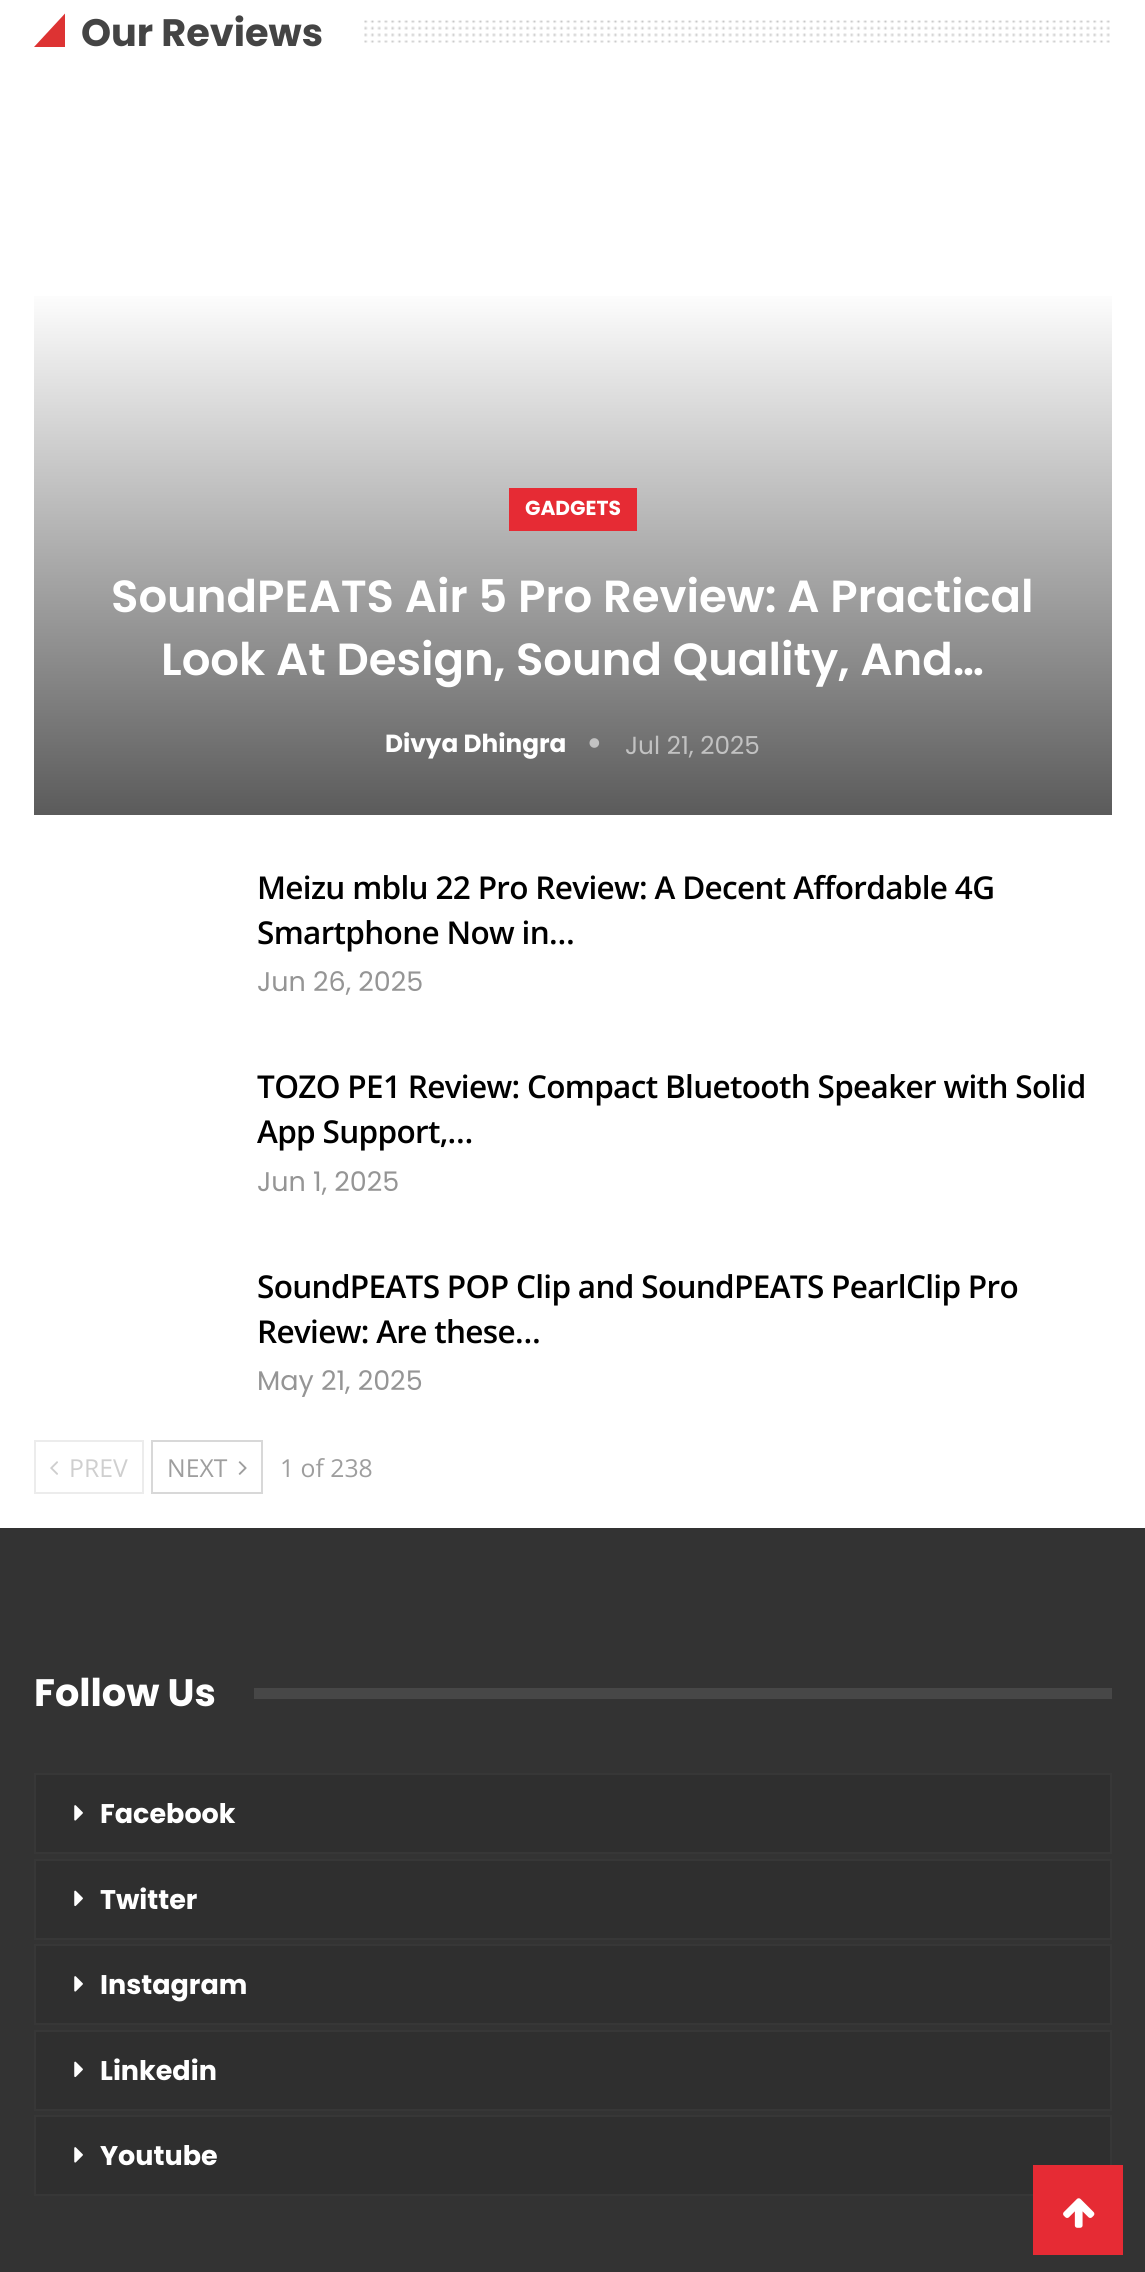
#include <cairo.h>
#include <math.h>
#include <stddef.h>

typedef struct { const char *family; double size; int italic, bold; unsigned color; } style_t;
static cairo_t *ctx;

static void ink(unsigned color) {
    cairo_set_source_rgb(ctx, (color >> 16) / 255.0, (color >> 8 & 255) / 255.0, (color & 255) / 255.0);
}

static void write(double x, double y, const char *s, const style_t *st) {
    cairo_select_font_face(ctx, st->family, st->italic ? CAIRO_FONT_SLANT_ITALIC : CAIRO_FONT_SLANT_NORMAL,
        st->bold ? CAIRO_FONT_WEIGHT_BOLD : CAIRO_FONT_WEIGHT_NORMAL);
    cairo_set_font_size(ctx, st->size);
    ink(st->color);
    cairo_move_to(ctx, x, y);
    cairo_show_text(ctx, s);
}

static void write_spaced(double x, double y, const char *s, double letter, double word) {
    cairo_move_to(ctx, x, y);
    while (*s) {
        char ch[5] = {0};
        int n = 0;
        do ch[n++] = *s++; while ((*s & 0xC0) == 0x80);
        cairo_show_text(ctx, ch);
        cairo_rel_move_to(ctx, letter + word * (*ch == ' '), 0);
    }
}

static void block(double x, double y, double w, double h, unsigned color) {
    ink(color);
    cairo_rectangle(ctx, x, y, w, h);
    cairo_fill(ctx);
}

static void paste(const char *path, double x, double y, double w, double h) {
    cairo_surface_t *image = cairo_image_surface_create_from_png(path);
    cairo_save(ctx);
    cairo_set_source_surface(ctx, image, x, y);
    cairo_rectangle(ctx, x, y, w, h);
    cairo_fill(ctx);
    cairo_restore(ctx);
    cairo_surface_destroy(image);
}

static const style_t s1 = {"Poppins", 38.25, 0, 1, 0x444444};
static const style_t s2 = {"Poppins", 20.25, 0, 1, 0xffffff};
static const style_t s3 = {"Poppins SemiBold", 45, 0, 0, 0xffffff};
static const style_t s4 = {"Poppins", 24.75, 0, 1, 0xffffff};
static const style_t s5 = {"Poppins", 24.75, 0, 0, 0xc2c2c2};
static const style_t s6 = {"Poppins", 27, 0, 0, 0x959595};
static const style_t s7 = {"Open Sans", 24.75, 0, 0, 0xcfcfcf};
static const style_t s8 = {"Open Sans", 24.75, 0, 0, 0x9e9e9e};
static const style_t s9 = {"Poppins", 38.25, 0, 1, 0xffffff};
static const style_t s10 = {"Poppins", 27, 0, 1, 0xffffff};

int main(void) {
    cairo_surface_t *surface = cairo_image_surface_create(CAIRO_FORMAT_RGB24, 1145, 2272);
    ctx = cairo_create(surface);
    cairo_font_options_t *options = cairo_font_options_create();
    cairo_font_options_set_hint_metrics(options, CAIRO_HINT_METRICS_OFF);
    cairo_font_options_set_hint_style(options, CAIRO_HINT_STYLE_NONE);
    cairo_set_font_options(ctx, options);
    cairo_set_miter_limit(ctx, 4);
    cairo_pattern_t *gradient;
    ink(0xffffff);
    cairo_paint(ctx);
    ink(0xdd3333);
    cairo_new_path(ctx);
    cairo_move_to(ctx, 65, 13.5);
    cairo_line_to(ctx, 65, 47);
    cairo_line_to(ctx, 34, 47);
    cairo_close_path(ctx);
    cairo_fill(ctx);
    write(81, 46, "Our Reviews", &s1);
    paste("pic1.png", 364, 20, 746, 23);
    gradient = cairo_pattern_create_linear(573, 288, 573, 817);
    cairo_pattern_add_color_stop_rgba(gradient, 0, 1, 1, 1, 1);
    cairo_pattern_add_color_stop_rgba(gradient, 1, 0.353, 0.353, 0.353, 1);
    cairo_set_source(ctx, gradient);
    cairo_pattern_destroy(gradient);
    cairo_rectangle(ctx, 34, 296, 1078, 519);
    cairo_fill(ctx);
    block(509, 488, 128, 43, 0xe62b34);
    write(525, 515, "GADGETS", &s2);
    write(111, 612, "SoundPEATS Air 5 Pro Review: A Practical", &s3);
    write(161, 675, "Look At Design, Sound Quality, And…", &s3);
    write(385, 752, "Divya Dhingra", &s4);
    paste("pic2.png", 589, 738, 11, 10);
    write(625, 754, "Jul 21, 2025", &s5);
    cairo_select_font_face(ctx, "Open Sans SemiBold", CAIRO_FONT_SLANT_NORMAL, CAIRO_FONT_WEIGHT_NORMAL);
    cairo_set_font_size(ctx, 31.5);
    ink(0x000000);
    write_spaced(257, 899, "Meizu mblu 22 Pro Review: A Decent Affordable 4G", -0.67, 0);
    write_spaced(257, 944, "Smartphone Now in…", -0.67, 0);
    write(257, 991, "Jun 26, 2025", &s6);
    cairo_select_font_face(ctx, "Open Sans SemiBold", CAIRO_FONT_SLANT_NORMAL, CAIRO_FONT_WEIGHT_NORMAL);
    cairo_set_font_size(ctx, 31.5);
    ink(0x000000);
    write_spaced(257, 1098, "TOZO PE1 Review: Compact Bluetooth Speaker with Solid", -0.67, 0);
    write_spaced(257, 1143, "App Support,…", -0.67, 0);
    write(257, 1191, "Jun 1, 2025", &s6);
    cairo_select_font_face(ctx, "Open Sans SemiBold", CAIRO_FONT_SLANT_NORMAL, CAIRO_FONT_WEIGHT_NORMAL);
    cairo_set_font_size(ctx, 31.5);
    ink(0x000000);
    write_spaced(257, 1298, "SoundPEATS POP Clip and SoundPEATS PearlClip Pro", -0.67, 0);
    write_spaced(257, 1343, "Review: Are these…", -0.67, 0);
    write(257, 1390, "May 21, 2025", &s6);
    cairo_rectangle(ctx, 35, 1441, 108, 52);
    ink(0xececec);
    cairo_stroke(ctx);
    paste("pic3.png", 50, 1461, 8, 14);
    write(69, 1477, "PREV", &s7);
    cairo_rectangle(ctx, 152, 1441, 110, 52);
    ink(0xd8d8d8);
    cairo_stroke(ctx);
    write(167, 1477, "NEXT", &s8);
    paste("pic4.png", 238, 1461, 9, 14);
    write(280, 1477, "1 of 238", &s8);
    block(0, 1528, 1145, 744, 0x333333);
    write(34, 1706, "Follow Us", &s9);
    block(254, 1688, 858, 11, 0x474747);
    ink(0x2f2f2f);
    cairo_rectangle(ctx, 35, 1774, 1076, 79);
    cairo_fill_preserve(ctx);
    ink(0x373737);
    cairo_stroke(ctx);
    paste("pic5.png", 74, 1805, 9, 16);
    write(100, 1823, "Facebook", &s10);
    ink(0x2f2f2f);
    cairo_rectangle(ctx, 35, 1860, 1076, 79);
    cairo_fill_preserve(ctx);
    ink(0x373737);
    cairo_stroke(ctx);
    paste("pic6.png", 74, 1890, 9, 17);
    write(100, 1909, "Twitter", &s10);
    ink(0x2f2f2f);
    cairo_rectangle(ctx, 35, 1945, 1076, 79);
    cairo_fill_preserve(ctx);
    ink(0x373737);
    cairo_stroke(ctx);
    paste("pic5.png", 74, 1976, 9, 16);
    write(100, 1994, "Instagram", &s10);
    ink(0x2f2f2f);
    cairo_rectangle(ctx, 35, 2031, 1076, 79);
    cairo_fill_preserve(ctx);
    ink(0x373737);
    cairo_stroke(ctx);
    paste("pic6.png", 74, 2061, 9, 17);
    write(100, 2080, "Linkedin", &s10);
    ink(0x2f2f2f);
    cairo_rectangle(ctx, 35, 2116, 1076, 79);
    cairo_fill_preserve(ctx);
    ink(0x373737);
    cairo_stroke(ctx);
    paste("pic5.png", 74, 2147, 9, 16);
    write(100, 2165, "Youtube", &s10);
    block(1033, 2165, 90, 90, 0xe62b34);
    paste("pic7.png", 1063, 2198, 32, 30);
    cairo_surface_write_to_png(surface, "screenshot.png");
    cairo_font_options_destroy(options);
    cairo_destroy(ctx);
    cairo_surface_destroy(surface);
    return 0;
}
